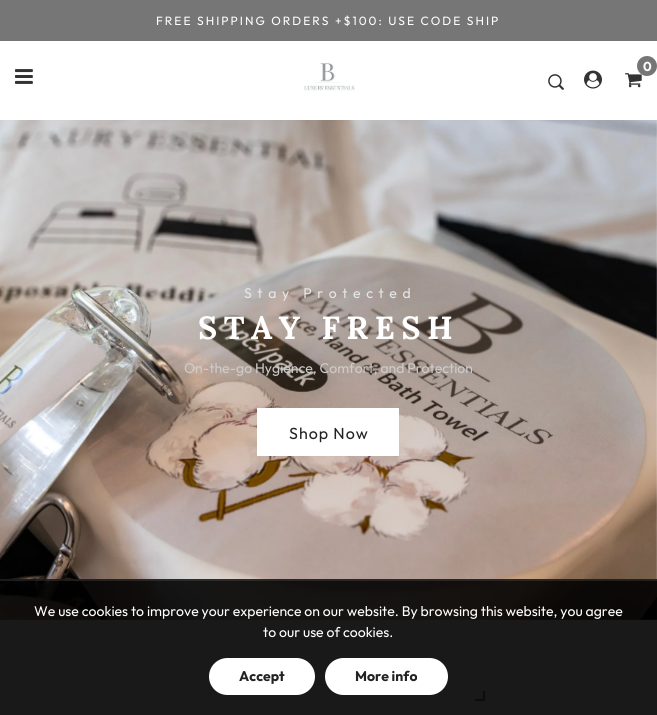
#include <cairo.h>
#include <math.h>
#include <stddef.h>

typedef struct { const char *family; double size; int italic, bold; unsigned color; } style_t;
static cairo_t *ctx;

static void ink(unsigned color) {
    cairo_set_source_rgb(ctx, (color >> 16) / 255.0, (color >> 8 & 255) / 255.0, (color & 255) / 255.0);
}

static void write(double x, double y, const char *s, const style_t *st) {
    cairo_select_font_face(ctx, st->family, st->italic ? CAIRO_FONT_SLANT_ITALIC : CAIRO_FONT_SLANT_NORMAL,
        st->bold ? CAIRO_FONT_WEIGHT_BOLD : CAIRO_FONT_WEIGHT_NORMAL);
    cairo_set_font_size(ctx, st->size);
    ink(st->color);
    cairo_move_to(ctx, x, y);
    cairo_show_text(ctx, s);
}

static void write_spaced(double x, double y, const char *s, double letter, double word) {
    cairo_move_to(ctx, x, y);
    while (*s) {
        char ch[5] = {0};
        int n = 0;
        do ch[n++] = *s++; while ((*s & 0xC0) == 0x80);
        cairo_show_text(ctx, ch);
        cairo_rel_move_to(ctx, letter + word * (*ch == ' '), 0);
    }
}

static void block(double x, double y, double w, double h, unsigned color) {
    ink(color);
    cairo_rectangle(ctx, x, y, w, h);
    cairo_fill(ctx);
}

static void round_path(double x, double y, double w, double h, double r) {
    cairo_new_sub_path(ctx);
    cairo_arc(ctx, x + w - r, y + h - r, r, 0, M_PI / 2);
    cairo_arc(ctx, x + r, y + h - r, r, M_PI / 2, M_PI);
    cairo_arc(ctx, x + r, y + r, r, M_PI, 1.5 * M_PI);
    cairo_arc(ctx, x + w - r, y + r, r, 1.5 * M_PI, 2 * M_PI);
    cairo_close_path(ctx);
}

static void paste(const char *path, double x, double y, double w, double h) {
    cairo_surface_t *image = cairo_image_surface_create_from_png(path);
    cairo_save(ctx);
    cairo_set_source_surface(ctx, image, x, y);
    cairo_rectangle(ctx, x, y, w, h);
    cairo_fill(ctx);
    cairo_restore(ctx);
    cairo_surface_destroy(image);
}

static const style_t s1 = {"Outfit", 13, 0, 1, 0xffffff};
static const style_t s2 = {"Outfit", 14, 0, 0, 0xcccccc};
static const style_t s3 = {"Outfit", 14, 0, 0, 0xffffff};
static const style_t s4 = {"Outfit", 14, 0, 1, 0x222222};

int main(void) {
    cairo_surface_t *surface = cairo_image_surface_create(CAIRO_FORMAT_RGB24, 657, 715);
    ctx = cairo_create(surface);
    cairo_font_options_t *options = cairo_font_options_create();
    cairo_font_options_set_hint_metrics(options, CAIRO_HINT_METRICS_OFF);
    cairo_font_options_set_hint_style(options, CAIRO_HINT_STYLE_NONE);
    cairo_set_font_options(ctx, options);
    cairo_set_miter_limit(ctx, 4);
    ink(0xffffff);
    cairo_paint(ctx);
    block(0, 0, 657, 41, 0x767676);
    cairo_select_font_face(ctx, "Outfit", CAIRO_FONT_SLANT_NORMAL, CAIRO_FONT_WEIGHT_NORMAL);
    cairo_set_font_size(ctx, 12);
    ink(0xffffff);
    write_spaced(156, 25, "FREE SHIPPING ORDERS +$100: USE CODE SHIP", 2, 0);
    paste("pic1.png", 15, 69, 18, 15);
    paste("pic2.png", 304, 63, 51, 28);
    paste("pic3.png", 625, 73, 17, 15);
    ink(0x767676);
    cairo_arc(ctx, 647, 66, 10, 0, 2 * M_PI);
    cairo_fill(ctx);
    write(643, 71, "0", &s1);
    paste("pic4.png", 548, 74, 16, 16);
    paste("pic5.png", 584, 70, 18, 19);
    paste("pic6.png", 0, 120, 657, 500);
    cairo_select_font_face(ctx, "Outfit", CAIRO_FONT_SLANT_NORMAL, CAIRO_FONT_WEIGHT_NORMAL);
    cairo_set_font_size(ctx, 14);
    ink(0xe6e6e6);
    write_spaced(244, 298, "Stay Protected", 5.6, 0);
    cairo_select_font_face(ctx, "Lora", CAIRO_FONT_SLANT_NORMAL, CAIRO_FONT_WEIGHT_BOLD);
    cairo_set_font_size(ctx, 32);
    ink(0xffffff);
    write_spaced(198, 339, "STAY FRESH", 6.5, 0);
    write(184, 373, "On-the-go Hygience, Comfort, and Protection", &s2);
    block(257, 408, 142, 48, 0xffffff);
    cairo_set_font_size(ctx, 16);
    ink(0x222222);
    write_spaced(289, 439, "Shop Now", 1, 0);
    block(30, 650, 597, 65, 0xfafafa);
    block(483, 691, 2, 10, 0x767676);
    block(475, 699, 10, 2, 0x767676);
    cairo_set_source_rgba(ctx, 0, 0, 0, 0.9);
    cairo_rectangle(ctx, 0, 579, 657, 136);
    cairo_fill(ctx);
    cairo_set_source_rgba(ctx, 1, 1, 1, 0.1);
    cairo_rectangle(ctx, 0, 579, 657, 2);
    cairo_fill(ctx);
    write(34, 616, "We use cookies to improve your experience on our website. By browsing this website, you agree", &s3);
    write(263, 637, "to our use of cookies.", &s3);
    round_path(209, 658, 106, 37, 18.5);
    cairo_fill(ctx);
    write(239, 681, "Accept", &s4);
    ink(0xffffff);
    round_path(325, 658, 123, 37, 18.5);
    cairo_fill(ctx);
    write(355, 681, "More info", &s4);
    cairo_surface_write_to_png(surface, "screenshot.png");
    cairo_font_options_destroy(options);
    cairo_destroy(ctx);
    cairo_surface_destroy(surface);
    return 0;
}
